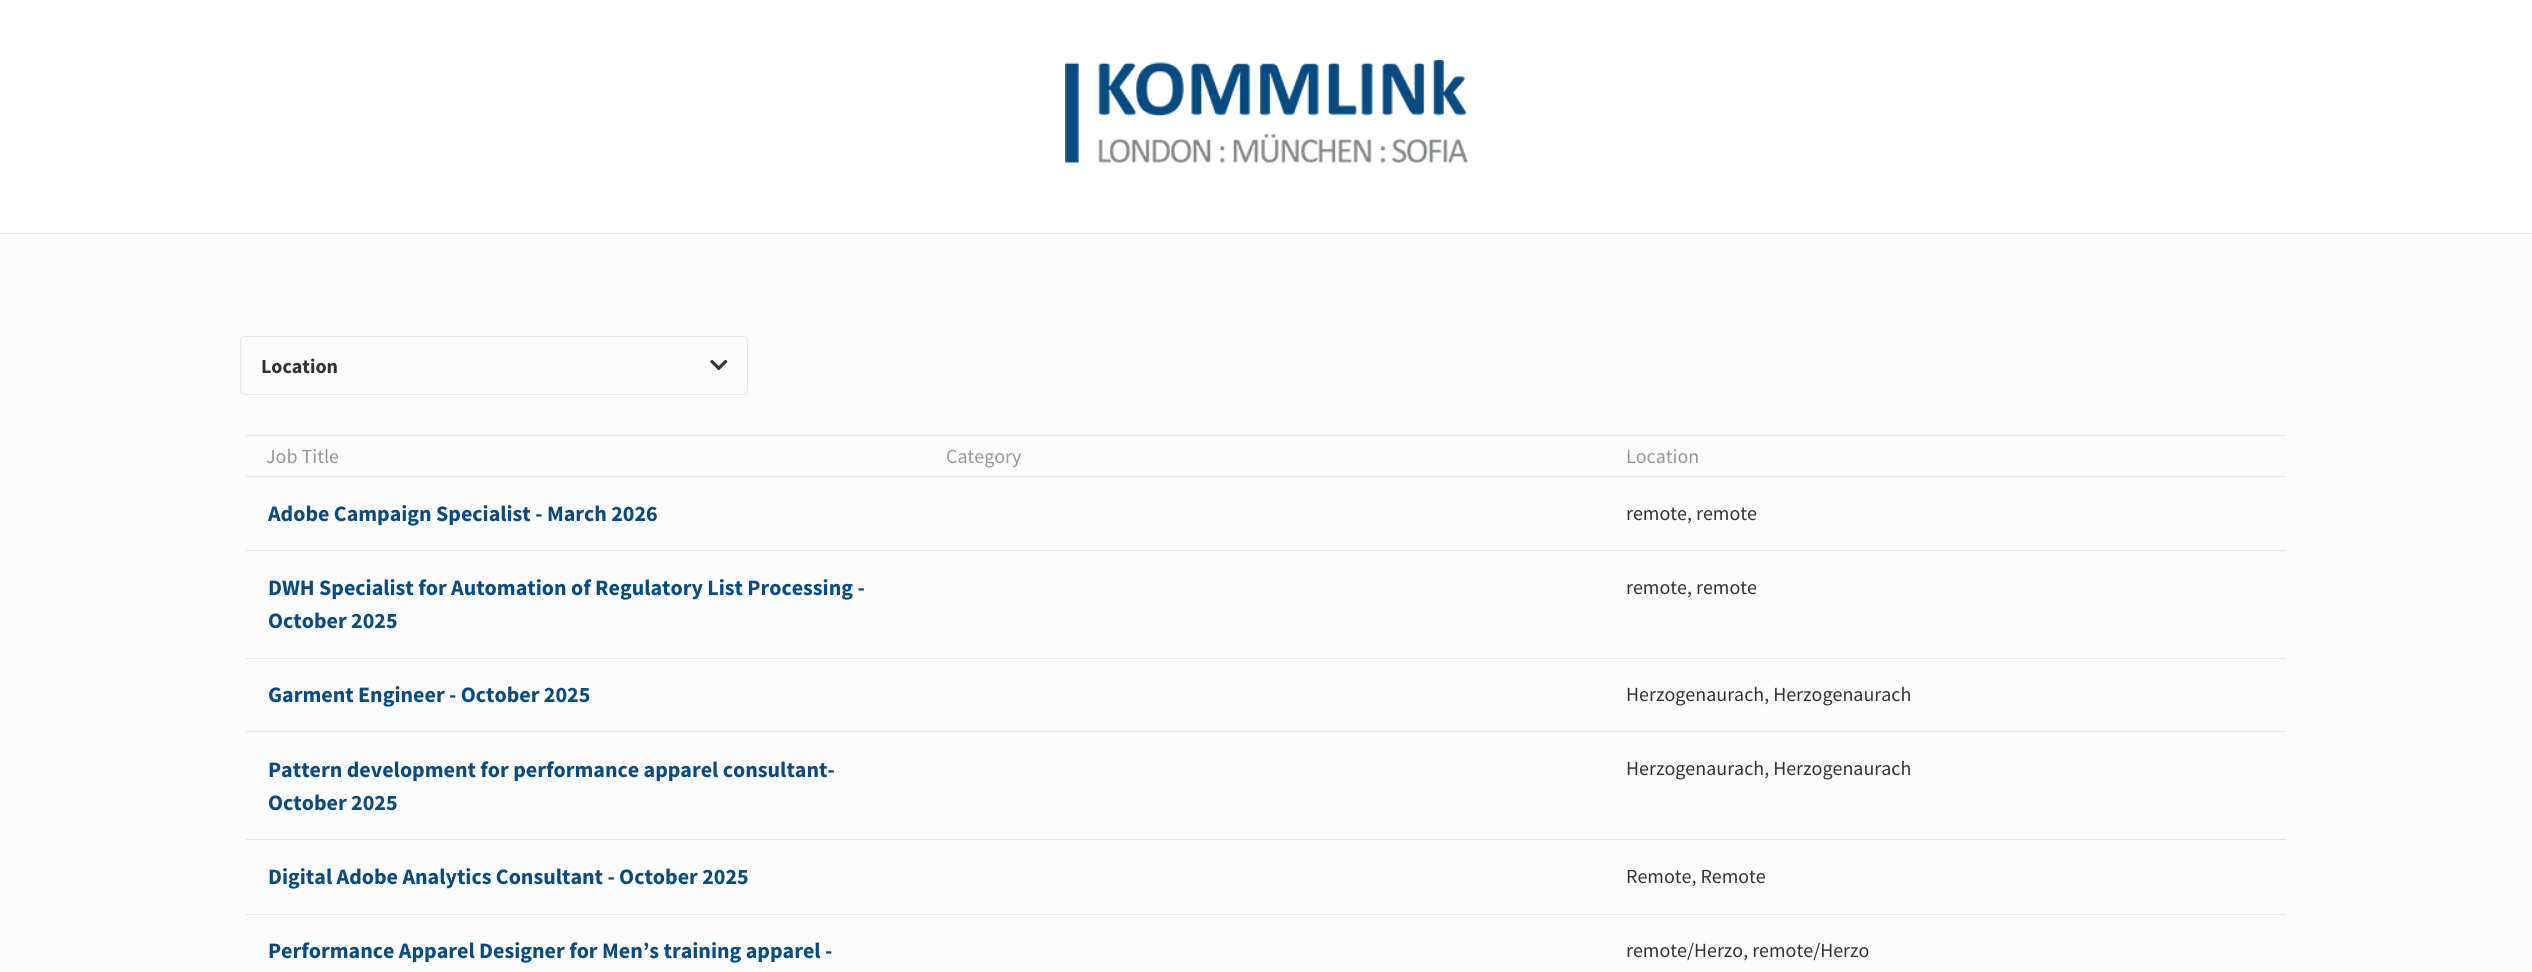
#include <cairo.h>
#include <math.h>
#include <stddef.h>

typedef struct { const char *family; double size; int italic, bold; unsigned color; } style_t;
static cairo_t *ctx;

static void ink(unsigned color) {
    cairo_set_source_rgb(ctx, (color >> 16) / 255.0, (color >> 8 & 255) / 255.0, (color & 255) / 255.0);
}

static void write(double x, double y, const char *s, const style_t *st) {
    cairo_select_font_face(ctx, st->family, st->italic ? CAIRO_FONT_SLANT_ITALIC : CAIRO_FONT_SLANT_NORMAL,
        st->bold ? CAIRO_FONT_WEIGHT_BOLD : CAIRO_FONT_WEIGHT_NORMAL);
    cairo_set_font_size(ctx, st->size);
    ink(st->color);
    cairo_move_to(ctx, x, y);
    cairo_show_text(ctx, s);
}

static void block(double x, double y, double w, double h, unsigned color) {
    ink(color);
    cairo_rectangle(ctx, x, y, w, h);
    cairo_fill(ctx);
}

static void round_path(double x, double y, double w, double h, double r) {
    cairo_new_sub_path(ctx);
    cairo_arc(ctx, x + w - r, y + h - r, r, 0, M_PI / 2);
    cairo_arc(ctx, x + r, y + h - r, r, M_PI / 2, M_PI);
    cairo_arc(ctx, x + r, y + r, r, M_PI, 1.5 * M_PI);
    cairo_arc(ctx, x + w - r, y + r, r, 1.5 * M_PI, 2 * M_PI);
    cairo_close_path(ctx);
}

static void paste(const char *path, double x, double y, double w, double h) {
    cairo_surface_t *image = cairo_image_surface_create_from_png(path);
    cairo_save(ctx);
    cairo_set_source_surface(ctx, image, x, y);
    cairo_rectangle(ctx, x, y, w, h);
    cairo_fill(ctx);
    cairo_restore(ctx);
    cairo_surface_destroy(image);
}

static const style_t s1 = {"Source Sans Pro", 20, 0, 1, 0x333333};
static const style_t s2 = {"Source Sans Pro", 20, 0, 0, 0x989898};
static const style_t s3 = {"Source Sans Pro", 22, 0, 1, 0x084b81};
static const style_t s4 = {"Source Sans Pro", 20, 0, 0, 0x333333};

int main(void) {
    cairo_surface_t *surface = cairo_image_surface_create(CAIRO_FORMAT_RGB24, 2532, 972);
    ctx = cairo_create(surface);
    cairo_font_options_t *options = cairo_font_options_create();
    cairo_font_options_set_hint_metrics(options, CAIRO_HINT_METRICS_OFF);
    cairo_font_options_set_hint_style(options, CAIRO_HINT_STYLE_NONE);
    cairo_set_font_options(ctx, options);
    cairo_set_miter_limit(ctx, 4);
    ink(0xfcfcfd);
    cairo_paint(ctx);
    block(0, 0, 2532, 233, 0xffffff);
    paste("pic1.png", 1065, 60, 403, 103);
    block(0, 233, 2532, 1, 0xe7e7ef);
    round_path(240.5, 336.5, 507, 58, 4.5);
    cairo_set_line_width(ctx, 1);
    cairo_stroke(ctx);
    write(261, 373, "Location", &s1);
    paste("pic2.png", 710, 359, 18, 12);
    block(246, 435, 2040, 1, 0xe7e7ef);
    write(266, 463, "Job Title", &s2);
    write(946, 463, "Category", &s2);
    write(1626, 463, "Location", &s2);
    block(246, 476, 2040, 1, 0xe7e7ef);
    write(268, 521, "Adobe Campaign Specialist - March 2026", &s3);
    write(1626, 520, "remote, remote", &s4);
    block(246, 550, 2040, 1, 0xe7e7ef);
    write(268, 595, "DWH Specialist for Automation of Regulatory List Processing -", &s3);
    write(268, 628, "October 2025", &s3);
    write(1626, 594, "remote, remote", &s4);
    block(246, 658, 2040, 1, 0xe7e7ef);
    write(268, 702, "Garment Engineer - October 2025", &s3);
    write(1626, 701, "Herzogenaurach, Herzogenaurach", &s4);
    block(246, 731, 2040, 1, 0xe7e7ef);
    write(268, 777, "Pattern development for performance apparel consultant-", &s3);
    write(268, 810, "October 2025", &s3);
    write(1626, 775, "Herzogenaurach, Herzogenaurach", &s4);
    block(246, 839, 2040, 1, 0xe7e7ef);
    write(268, 884, "Digital Adobe Analytics Consultant - October 2025", &s3);
    write(1626, 883, "Remote, Remote", &s4);
    block(246, 914, 2040, 1, 0xe7e7ef);
    write(268, 958, "Performance Apparel Designer for Men’s training apparel -", &s3);
    write(1626, 957, "remote/Herzo, remote/Herzo", &s4);
    cairo_surface_write_to_png(surface, "screenshot.png");
    cairo_font_options_destroy(options);
    cairo_destroy(ctx);
    cairo_surface_destroy(surface);
    return 0;
}
